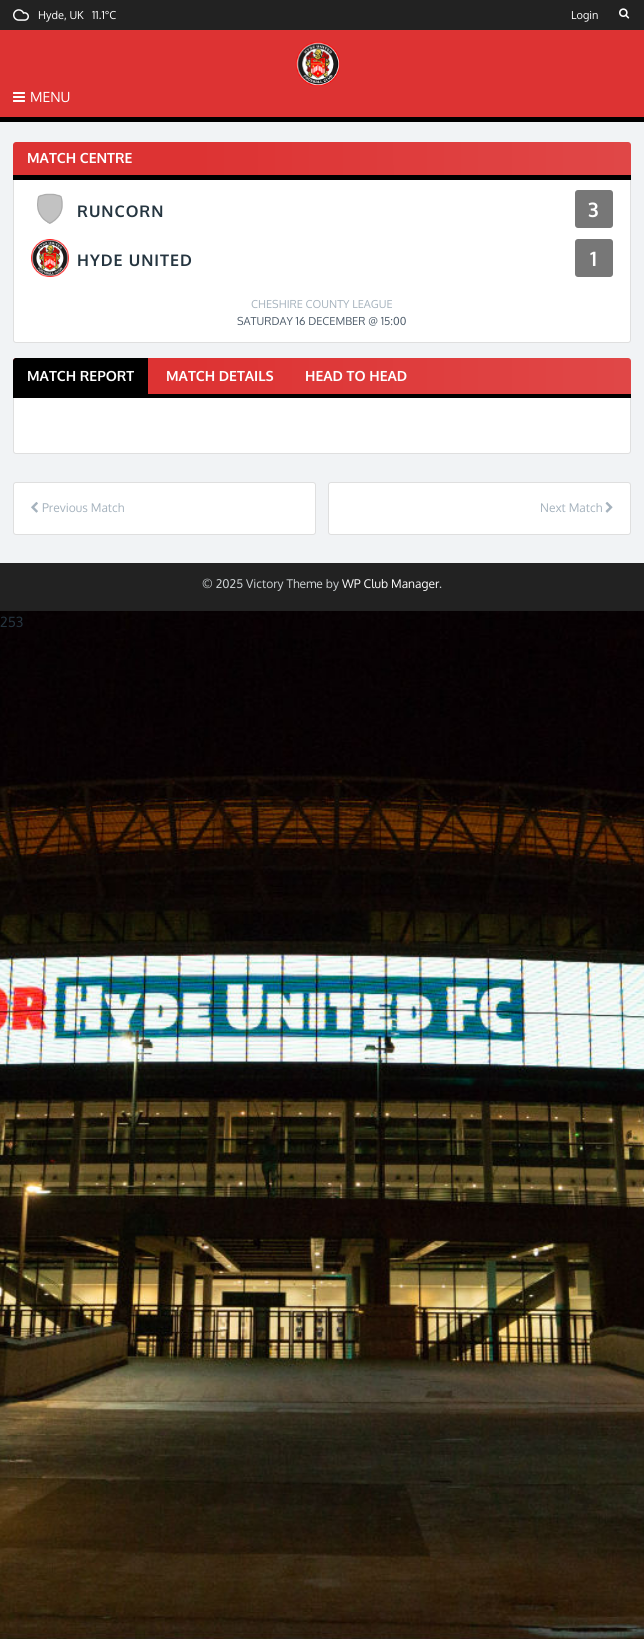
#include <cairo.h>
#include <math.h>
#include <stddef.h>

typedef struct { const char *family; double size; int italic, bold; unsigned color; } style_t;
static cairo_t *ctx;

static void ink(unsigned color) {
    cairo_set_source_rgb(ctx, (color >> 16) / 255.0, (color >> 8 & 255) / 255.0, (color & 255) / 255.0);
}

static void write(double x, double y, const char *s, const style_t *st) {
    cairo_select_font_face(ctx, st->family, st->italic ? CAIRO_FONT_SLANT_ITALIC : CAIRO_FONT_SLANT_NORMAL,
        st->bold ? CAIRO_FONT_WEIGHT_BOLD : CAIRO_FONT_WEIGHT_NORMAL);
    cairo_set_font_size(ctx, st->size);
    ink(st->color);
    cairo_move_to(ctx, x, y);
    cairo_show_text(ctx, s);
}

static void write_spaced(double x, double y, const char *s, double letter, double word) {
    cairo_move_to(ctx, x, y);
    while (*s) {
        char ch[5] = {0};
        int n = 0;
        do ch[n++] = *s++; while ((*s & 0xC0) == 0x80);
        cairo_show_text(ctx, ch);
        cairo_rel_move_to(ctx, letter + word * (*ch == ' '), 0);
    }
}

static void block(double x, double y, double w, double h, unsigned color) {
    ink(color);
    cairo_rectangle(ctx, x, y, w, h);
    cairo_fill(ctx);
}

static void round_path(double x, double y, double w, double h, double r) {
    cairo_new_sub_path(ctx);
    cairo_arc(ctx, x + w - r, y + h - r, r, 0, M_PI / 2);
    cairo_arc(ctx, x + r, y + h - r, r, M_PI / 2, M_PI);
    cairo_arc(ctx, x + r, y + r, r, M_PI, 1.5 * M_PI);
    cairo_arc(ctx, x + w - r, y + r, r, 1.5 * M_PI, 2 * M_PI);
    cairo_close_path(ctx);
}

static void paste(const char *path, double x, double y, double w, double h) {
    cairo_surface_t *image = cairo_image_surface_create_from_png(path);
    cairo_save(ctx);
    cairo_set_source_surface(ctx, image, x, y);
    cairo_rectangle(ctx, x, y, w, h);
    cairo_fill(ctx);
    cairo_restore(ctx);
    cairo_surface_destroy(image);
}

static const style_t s1 = {"Oxygen", 11, 0, 0, 0xffffff};
static const style_t s2 = {"Oxygen", 14, 0, 0, 0xffffff};
static const style_t s3 = {"Oxygen", 14, 0, 1, 0xffffff};
static const style_t s4 = {"Oxygen", 20, 0, 1, 0xffffff};
static const style_t s5 = {"Oxygen", 11, 0, 0, 0xa5b2bd};
static const style_t s6 = {"Oxygen", 11, 0, 0, 0x4f5d6b};
static const style_t s7 = {"Oxygen", 12, 0, 0, 0xa5b2bd};
static const style_t s8 = {"Oxygen", 12, 0, 0, 0xcfd4d6};
static const style_t s9 = {"Oxygen", 12, 0, 0, 0xffffff};
static const style_t s10 = {"Oxygen", 14, 0, 0, 0x253540};

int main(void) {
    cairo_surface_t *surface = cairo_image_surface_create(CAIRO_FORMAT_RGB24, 644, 1639);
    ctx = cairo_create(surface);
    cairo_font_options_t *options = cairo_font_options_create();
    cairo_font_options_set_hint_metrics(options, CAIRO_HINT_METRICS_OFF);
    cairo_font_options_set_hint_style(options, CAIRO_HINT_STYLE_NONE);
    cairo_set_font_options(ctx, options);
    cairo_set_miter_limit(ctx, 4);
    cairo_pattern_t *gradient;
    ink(0xffffff);
    cairo_paint(ctx);
    paste("pic1.png", 0, 611, 644, 1028);
    block(0, 0, 644, 30, 0x222222);
    paste("pic2.png", 13, 9, 16, 12);
    write(38, 19, "Hyde, UK", &s1);
    write(92, 19, "11.1°C", &s1);
    write(571, 19, "Login", &s1);
    paste("pic3.png", 619, 8, 11, 11);
    block(0, 30, 644, 87, 0xdd3333);
    paste("pic4.png", 295, 41, 45, 45);
    block(0, 117, 644, 5, 0x000000);
    paste("pic5.png", 13, 92, 12, 10);
    write(30, 102, "MENU", &s2);
    block(0, 122, 644, 441, 0xf1f3f5);
    ink(0xffffff);
    round_path(13.5, 142.5, 617, 200, 2.5);
    cairo_fill_preserve(ctx);
    ink(0xdfdfdf);
    cairo_set_line_width(ctx, 1);
    cairo_stroke(ctx);
    ink(0xdd3333);
    cairo_new_path(ctx);
    cairo_move_to(ctx, 16, 142);
    cairo_line_to(ctx, 628, 142);
    cairo_curve_to(ctx, 629.5, 142, 631, 143.5, 631, 145);
    cairo_line_to(ctx, 631, 180);
    cairo_line_to(ctx, 13, 180);
    cairo_line_to(ctx, 13, 145);
    cairo_curve_to(ctx, 13, 143.5, 14.5, 142, 16, 142);
    cairo_close_path(ctx);
    cairo_fill(ctx);
    gradient = cairo_pattern_create_linear(13, 159, 631, 158);
    cairo_pattern_add_color_stop_rgba(gradient, 0, 1, 1, 1, 0);
    cairo_pattern_add_color_stop_rgba(gradient, 0.3, 1, 1, 1, 0);
    cairo_pattern_add_color_stop_rgba(gradient, 1, 1, 1, 1, 0.1);
    cairo_set_source(ctx, gradient);
    cairo_pattern_destroy(gradient);
    cairo_new_path(ctx);
    cairo_move_to(ctx, 16, 142);
    cairo_line_to(ctx, 628, 142);
    cairo_curve_to(ctx, 629.5, 142, 631, 143.5, 631, 145);
    cairo_line_to(ctx, 631, 180);
    cairo_line_to(ctx, 13, 180);
    cairo_line_to(ctx, 13, 145);
    cairo_curve_to(ctx, 13, 143.5, 14.5, 142, 16, 142);
    cairo_close_path(ctx);
    cairo_fill(ctx);
    block(13, 175, 618, 5, 0x000000);
    write(27, 163, "MATCH CENTRE", &s3);
    paste("pic6.png", 37, 193, 26, 31);
    cairo_set_font_size(ctx, 16);
    ink(0x253540);
    write_spaced(77, 217, "RUNCORN", 1, 0);
    ink(0x777777);
    round_path(575, 190, 38, 38, 3);
    cairo_fill(ctx);
    write(588, 217, "3", &s4);
    paste("pic7.png", 31, 239, 38, 38);
    cairo_set_font_size(ctx, 16);
    ink(0x253540);
    write_spaced(77, 266, "HYDE UNITED", 1, 0);
    ink(0x777777);
    round_path(575, 239, 38, 38, 3);
    cairo_fill(ctx);
    write(590, 266, "1", &s4);
    write(251, 308, "CHESHIRE COUNTY LEAGUE", &s5);
    write(237, 325, "SATURDAY 16 DECEMBER @ 15:00", &s6);
    ink(0xffffff);
    round_path(13.5, 358.5, 617, 95, 2.5);
    cairo_fill_preserve(ctx);
    ink(0xdfdfdf);
    cairo_stroke(ctx);
    ink(0xdd3333);
    cairo_new_path(ctx);
    cairo_move_to(ctx, 16, 358);
    cairo_line_to(ctx, 628, 358);
    cairo_curve_to(ctx, 629.5, 358, 631, 359.5, 631, 361);
    cairo_line_to(ctx, 631, 398);
    cairo_line_to(ctx, 13, 398);
    cairo_line_to(ctx, 13, 361);
    cairo_curve_to(ctx, 13, 359.5, 14.5, 358, 16, 358);
    cairo_close_path(ctx);
    cairo_fill(ctx);
    gradient = cairo_pattern_create_linear(13, 376, 631, 376);
    cairo_pattern_add_color_stop_rgba(gradient, 0, 1, 1, 1, 0);
    cairo_pattern_add_color_stop_rgba(gradient, 0.3, 1, 1, 1, 0);
    cairo_pattern_add_color_stop_rgba(gradient, 1, 1, 1, 1, 0.1);
    cairo_set_source(ctx, gradient);
    cairo_pattern_destroy(gradient);
    cairo_new_path(ctx);
    cairo_move_to(ctx, 16, 358);
    cairo_line_to(ctx, 628, 358);
    cairo_curve_to(ctx, 629.5, 358, 631, 359.5, 631, 361);
    cairo_line_to(ctx, 631, 398);
    cairo_line_to(ctx, 13, 398);
    cairo_line_to(ctx, 13, 361);
    cairo_curve_to(ctx, 13, 359.5, 14.5, 358, 16, 358);
    cairo_close_path(ctx);
    cairo_fill(ctx);
    block(13, 394, 618, 4, 0x000000);
    cairo_new_path(ctx);
    cairo_move_to(ctx, 16, 358);
    cairo_line_to(ctx, 148, 358);
    cairo_line_to(ctx, 148, 394);
    cairo_line_to(ctx, 13, 394);
    cairo_line_to(ctx, 13, 361);
    cairo_curve_to(ctx, 13, 359.5, 14.5, 358, 16, 358);
    cairo_close_path(ctx);
    cairo_fill(ctx);
    write(27, 381, "MATCH REPORT", &s3);
    write(166, 381, "MATCH DETAILS", &s3);
    write(305, 381, "HEAD TO HEAD", &s3);
    round_path(13.5, 482.5, 302, 52, 2.5);
    cairo_fill_preserve(ctx);
    ink(0xdfdfdf);
    cairo_stroke(ctx);
    paste("pic8.png", 31, 502, 7, 11);
    write(42, 512, "Previous Match", &s7);
    ink(0xffffff);
    round_path(328.5, 482.5, 302, 52, 2.5);
    cairo_fill_preserve(ctx);
    ink(0xdfdfdf);
    cairo_stroke(ctx);
    write(540, 512, "Next Match", &s7);
    paste("pic9.png", 605, 502, 8, 11);
    block(0, 563, 644, 48, 0x222222);
    write(202, 588, "© 2025 Victory Theme by", &s8);
    write(342, 588, "WP Club Manager", &s9);
    write(439, 588, ".", &s8);
    write(0, 627, "253", &s10);
    cairo_surface_write_to_png(surface, "screenshot.png");
    cairo_font_options_destroy(options);
    cairo_destroy(ctx);
    cairo_surface_destroy(surface);
    return 0;
}
